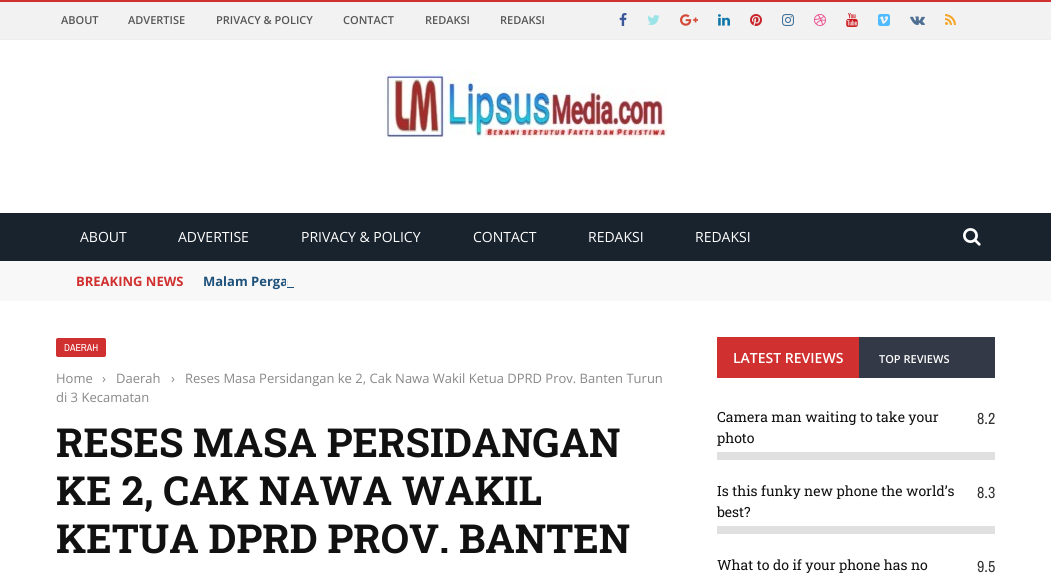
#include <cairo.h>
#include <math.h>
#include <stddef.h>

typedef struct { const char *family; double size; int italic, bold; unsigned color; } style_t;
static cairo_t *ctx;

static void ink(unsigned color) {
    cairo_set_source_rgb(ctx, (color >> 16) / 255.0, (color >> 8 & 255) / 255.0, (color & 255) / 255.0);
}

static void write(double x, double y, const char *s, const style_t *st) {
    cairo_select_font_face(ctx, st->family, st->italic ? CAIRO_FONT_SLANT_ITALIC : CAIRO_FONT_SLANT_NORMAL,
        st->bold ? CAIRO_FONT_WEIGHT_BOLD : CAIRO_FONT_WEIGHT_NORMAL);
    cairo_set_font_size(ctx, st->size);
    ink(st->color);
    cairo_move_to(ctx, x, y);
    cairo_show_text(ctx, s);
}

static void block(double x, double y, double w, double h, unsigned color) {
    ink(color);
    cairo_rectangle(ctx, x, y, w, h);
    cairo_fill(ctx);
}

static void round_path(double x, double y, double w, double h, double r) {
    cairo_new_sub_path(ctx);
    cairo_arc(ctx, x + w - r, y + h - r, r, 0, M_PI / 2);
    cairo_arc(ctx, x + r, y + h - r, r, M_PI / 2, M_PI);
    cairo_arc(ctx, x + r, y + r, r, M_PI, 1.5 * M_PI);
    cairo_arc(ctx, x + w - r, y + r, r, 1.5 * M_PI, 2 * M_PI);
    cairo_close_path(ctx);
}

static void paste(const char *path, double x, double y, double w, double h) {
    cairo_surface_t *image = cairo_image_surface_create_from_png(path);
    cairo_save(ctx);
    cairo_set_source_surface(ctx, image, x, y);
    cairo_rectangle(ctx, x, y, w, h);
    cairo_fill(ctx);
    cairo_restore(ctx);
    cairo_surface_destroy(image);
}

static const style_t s1 = {"Open Sans SemiBold", 11, 0, 0, 0x565656};
static const style_t s2 = {"Open Sans", 14, 0, 0, 0xffffff};
static const style_t s3 = {"Open Sans", 13, 0, 1, 0xd13030};
static const style_t s4 = {"Open Sans", 13, 0, 1, 0x1f527b};
static const style_t s5 = {"Archivo Narrow", 10, 0, 0, 0xffffff};
static const style_t s6 = {"Open Sans", 13, 0, 0, 0x888888};
static const style_t s7 = {"Roboto Slab", 40, 0, 1, 0x111111};
static const style_t s8 = {"Open Sans SemiBold", 14, 0, 0, 0xffffff};
static const style_t s9 = {"Open Sans SemiBold", 11, 0, 0, 0xffffff};
static const style_t s10 = {"Roboto Slab", 14, 0, 0, 0x111111};
static const style_t s11 = {"Archivo Narrow", 16, 0, 0, 0x333333};

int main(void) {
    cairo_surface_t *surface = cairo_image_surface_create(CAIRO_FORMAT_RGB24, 1051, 578);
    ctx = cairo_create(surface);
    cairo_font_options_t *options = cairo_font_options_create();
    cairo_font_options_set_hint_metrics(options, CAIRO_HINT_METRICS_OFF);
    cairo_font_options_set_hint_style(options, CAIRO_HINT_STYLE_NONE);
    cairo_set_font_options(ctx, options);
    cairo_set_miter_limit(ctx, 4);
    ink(0xffffff);
    cairo_paint(ctx);
    block(0, 2, 1051, 37, 0xf2f2f2);
    block(0, 0, 1051, 2, 0xd13030);
    block(0, 39, 1051, 1, 0xeeeeee);
    write(61, 24, "ABOUT", &s1);
    write(128, 24, "ADVERTISE", &s1);
    write(216, 24, "PRIVACY & POLICY", &s1);
    write(343, 24, "CONTACT", &s1);
    write(425, 24, "REDAKSI", &s1);
    write(500, 24, "REDAKSI", &s1);
    paste("pic1.png", 619, 13, 8, 13);
    paste("pic2.png", 647, 15, 13, 10);
    paste("pic3.png", 680, 14, 18, 12);
    paste("pic4.png", 718, 14, 12, 12);
    paste("pic5.png", 750, 14, 12, 12);
    paste("pic6.png", 782, 14, 12, 12);
    paste("pic7.png", 814, 14, 12, 12);
    paste("pic8.png", 846, 13, 12, 14);
    paste("pic9.png", 878, 14, 12, 12);
    paste("pic10.png", 910, 16, 15, 9);
    paste("pic11.png", 945, 14, 11, 11);
    paste("pic12.png", 384, 70, 283, 69);
    block(0, 213, 1051, 48, 0x19232d);
    write(80, 242, "ABOUT", &s2);
    write(178, 242, "ADVERTISE", &s2);
    write(301, 242, "PRIVACY & POLICY", &s2);
    write(473, 242, "CONTACT", &s2);
    write(588, 242, "REDAKSI", &s2);
    write(695, 242, "REDAKSI", &s2);
    paste("pic13.png", 963, 228, 18, 18);
    block(0, 261, 1051, 40, 0xf8f8f8);
    write(76, 286, "BREAKING NEWS", &s3);
    write(203, 286, "Malam Perga", &s4);
    block(286, 279, 1, 7, 0xf8f8f8);
    block(287, 287, 7, 1, 0x1f527b);
    ink(0xd13030);
    round_path(56, 338, 50, 19, 2);
    cairo_fill(ctx);
    write(64, 351, "DAERAH", &s5);
    write(56, 383, "Home", &s6);
    write(102, 383, "›", &s6);
    write(116, 383, "Daerah", &s6);
    write(171, 383, "›", &s6);
    write(185, 383, "Reses Masa Persidangan ke 2, Cak Nawa Wakil Ketua DPRD Prov. Banten Turun", &s6);
    write(56, 402, "di 3 Kecamatan", &s6);
    write(56, 457, "RESES MASA PERSIDANGAN", &s7);
    write(56, 505, "KE 2, CAK NAWA WAKIL", &s7);
    write(56, 553, "KETUA DPRD PROV. BANTEN", &s7);
    block(859, 337, 136, 41, 0x333946);
    block(717, 337, 142, 41, 0xd13030);
    write(733, 363, "LATEST REVIEWS", &s8);
    write(879, 363, "TOP REVIEWS", &s9);
    write(717, 422, "Camera man waiting to take your", &s10);
    write(717, 443, "photo", &s10);
    write(977, 424, "8.2", &s11);
    block(717, 452, 278, 8, 0xe0e0e0);
    write(717, 496, "Is this funky new phone the world’s", &s10);
    write(717, 517, "best?", &s10);
    write(977, 498, "8.3", &s11);
    block(717, 526, 278, 8, 0xe0e0e0);
    write(717, 570, "What to do if your phone has no", &s10);
    write(977, 572, "9.5", &s11);
    cairo_surface_write_to_png(surface, "screenshot.png");
    cairo_font_options_destroy(options);
    cairo_destroy(ctx);
    cairo_surface_destroy(surface);
    return 0;
}
